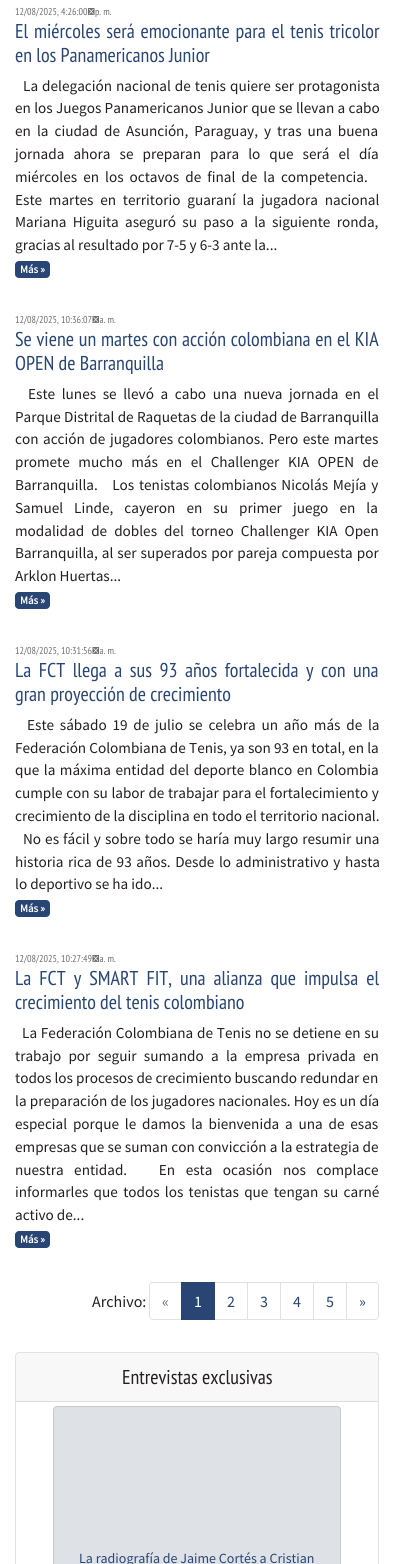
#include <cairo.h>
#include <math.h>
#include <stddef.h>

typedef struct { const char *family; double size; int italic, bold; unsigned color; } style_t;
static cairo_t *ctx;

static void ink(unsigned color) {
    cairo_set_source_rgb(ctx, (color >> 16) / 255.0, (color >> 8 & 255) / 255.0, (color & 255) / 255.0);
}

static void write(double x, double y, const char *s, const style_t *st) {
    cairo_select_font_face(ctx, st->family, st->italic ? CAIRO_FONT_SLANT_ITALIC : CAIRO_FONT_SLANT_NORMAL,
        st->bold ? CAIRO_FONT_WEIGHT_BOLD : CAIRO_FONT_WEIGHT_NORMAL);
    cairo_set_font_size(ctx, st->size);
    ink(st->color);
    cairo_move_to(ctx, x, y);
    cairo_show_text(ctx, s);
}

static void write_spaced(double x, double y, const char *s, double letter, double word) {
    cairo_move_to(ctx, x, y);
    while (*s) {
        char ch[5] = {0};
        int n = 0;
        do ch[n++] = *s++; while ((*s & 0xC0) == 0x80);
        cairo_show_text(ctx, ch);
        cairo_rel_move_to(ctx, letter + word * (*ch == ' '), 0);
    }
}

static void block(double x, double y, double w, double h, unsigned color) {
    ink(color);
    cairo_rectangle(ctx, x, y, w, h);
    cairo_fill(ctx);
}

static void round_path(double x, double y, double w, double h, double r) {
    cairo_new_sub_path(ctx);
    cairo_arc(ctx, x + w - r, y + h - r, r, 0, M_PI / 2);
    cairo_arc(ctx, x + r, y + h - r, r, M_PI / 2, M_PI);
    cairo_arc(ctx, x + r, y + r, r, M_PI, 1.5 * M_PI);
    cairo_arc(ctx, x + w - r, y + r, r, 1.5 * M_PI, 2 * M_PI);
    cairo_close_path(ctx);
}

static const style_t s1 = {"PT Sans Narrow", 10, 0, 0, 0x6d6e71};
static const style_t s2 = {"PT Sans Narrow", 20, 0, 0, 0x294573};
static const style_t s3 = {"Source Sans Pro", 15.2, 0, 0, 0x231f20};
static const style_t s4 = {"Source Sans Pro", 11, 0, 1, 0xffffff};
static const style_t s5 = {"Source Sans Pro", 16, 0, 0, 0x231f20};
static const style_t s6 = {"Source Sans Pro", 16, 0, 0, 0x6d6e71};
static const style_t s7 = {"Source Sans Pro", 16, 0, 0, 0xffffff};
static const style_t s8 = {"Source Sans Pro", 16, 0, 0, 0x294573};
static const style_t s9 = {"PT Sans Narrow", 20, 0, 0, 0x231f20};
static const style_t s10 = {"Source Sans Pro", 14, 0, 0, 0x294573};

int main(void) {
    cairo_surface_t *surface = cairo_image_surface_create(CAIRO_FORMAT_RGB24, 394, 1564);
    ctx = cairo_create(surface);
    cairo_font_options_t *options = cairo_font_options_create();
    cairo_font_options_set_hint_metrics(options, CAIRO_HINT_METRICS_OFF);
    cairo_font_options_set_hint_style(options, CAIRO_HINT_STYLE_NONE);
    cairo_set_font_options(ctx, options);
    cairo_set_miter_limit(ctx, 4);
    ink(0xffffff);
    cairo_paint(ctx);
    write(15, 15, "12/08/2025, 4:26:00 p. m.", &s1);
    cairo_set_font_size(ctx, 20);
    ink(0x294573);
    write_spaced(15, 38, "El miércoles será emocionante para el tenis tricolor", 0, 1.5);
    write(15, 62, "en los Panamericanos Junior", &s2);
    cairo_select_font_face(ctx, "Source Sans Pro", CAIRO_FONT_SLANT_NORMAL, CAIRO_FONT_WEIGHT_NORMAL);
    cairo_set_font_size(ctx, 15.2);
    ink(0x231f20);
    write_spaced(23, 91, "La delegación nacional de tenis quiere ser protagonista", 0, 1);
    write_spaced(15, 113, "en los Juegos Panamericanos Junior que se llevan a cabo", 0, 0.25);
    write_spaced(15, 136, "en la ciudad de Asunción, Paraguay, y tras una buena", 0, 3);
    write_spaced(15, 159, "jornada ahora se preparan para lo que será el día", 0, 6);
    write_spaced(15, 182, "miércoles en los octavos de final de la competencia.", 0, 3);
    write_spaced(15, 205, "Este martes en territorio guaraní la jugadora nacional", 0, 3.75);
    write_spaced(15, 227, "Mariana Higuita aseguró su paso a la siguiente ronda,", 0, 3.25);
    write(15, 250, "gracias al resultado por 7-5 y 6-3 ante la...", &s3);
    ink(0x294573);
    round_path(15, 261, 35, 17, 4);
    cairo_fill(ctx);
    write(20, 273, "Más »", &s4);
    write(15, 323, "12/08/2025, 10:36:07 a. m.", &s1);
    cairo_set_font_size(ctx, 20);
    ink(0x294573);
    write_spaced(15, 346, "Se viene un martes con acción colombiana en el KIA", 0, 0.5);
    write(15, 370, "OPEN de Barranquilla", &s2);
    cairo_select_font_face(ctx, "Source Sans Pro", CAIRO_FONT_SLANT_NORMAL, CAIRO_FONT_WEIGHT_NORMAL);
    cairo_set_font_size(ctx, 15.2);
    ink(0x231f20);
    write_spaced(28, 399, "Este lunes se llevó a cabo una nueva jornada en el", 0, 3.6);
    write_spaced(15, 422, "Parque Distrital de Raquetas de la ciudad de Barranquilla", 0, 0.25);
    write_spaced(15, 444, "con acción de jugadores colombianos. Pero este martes", 0, 1.5);
    write_spaced(15, 467, "promete mucho más en el Challenger KIA OPEN de", 0, 5.5);
    write_spaced(15, 490, "Barranquilla.   Los tenistas colombianos Nicolás Mejía y", 0, 1.75);
    write_spaced(15, 513, "Samuel Linde, cayeron en su primer juego en la", 0, 8);
    write_spaced(15, 536, "modalidad de dobles del torneo Challenger KIA Open", 0, 4);
    write_spaced(15, 558, "Barranquilla, al ser superados por pareja compuesta por", 0, 1);
    write(15, 581, "Arklon Huertas...", &s3);
    ink(0x294573);
    round_path(15, 592, 35, 17, 4);
    cairo_fill(ctx);
    write(20, 604, "Más »", &s4);
    write(15, 654, "12/08/2025, 10:31:56 a. m.", &s1);
    cairo_set_font_size(ctx, 20);
    ink(0x294573);
    write_spaced(15, 677, "La FCT llega a sus 93 años fortalecida y con una", 0, 3.25);
    write(15, 701, "gran proyección de crecimiento", &s2);
    cairo_select_font_face(ctx, "Source Sans Pro", CAIRO_FONT_SLANT_NORMAL, CAIRO_FONT_WEIGHT_NORMAL);
    cairo_set_font_size(ctx, 15.2);
    ink(0x231f20);
    write_spaced(27, 730, "Este sábado 19 de julio se celebra un año más de la", 0, 2.75);
    write_spaced(15, 753, "Federación Colombiana de Tenis, ya son 93 en total, en la", 0, 0.1);
    write_spaced(15, 775, "que la máxima entidad del deporte blanco en Colombia", 0, 1.5);
    write_spaced(15, 798, "cumple con su labor de trabajar para el fortalecimiento y", 0, 0.5);
    write_spaced(15, 821, "crecimiento de la disciplina en todo el territorio nacional.", 0, 0.25);
    write_spaced(23, 844, "No es fácil y sobre todo se haría muy largo resumir una", 0, 1);
    write_spaced(15, 867, "historia rica de 93 años. Desde lo administrativo y hasta", 0, 1.5);
    write(15, 889, "lo deportivo se ha ido...", &s3);
    ink(0x294573);
    round_path(15, 900, 35, 17, 4);
    cairo_fill(ctx);
    write(20, 912, "Más »", &s4);
    write(15, 962, "12/08/2025, 10:27:49 a. m.", &s1);
    cairo_set_font_size(ctx, 20);
    ink(0x294573);
    write_spaced(15, 985, "La FCT y SMART FIT, una alianza que impulsa el", 0, 3.75);
    write(15, 1009, "crecimiento del tenis colombiano", &s2);
    cairo_select_font_face(ctx, "Source Sans Pro", CAIRO_FONT_SLANT_NORMAL, CAIRO_FONT_WEIGHT_NORMAL);
    cairo_set_font_size(ctx, 15.2);
    ink(0x231f20);
    write_spaced(22, 1038, "La Federación Colombiana de Tenis no se detiene en su", 0, 0.75);
    write_spaced(15, 1061, "trabajo por seguir sumando a la empresa privada en", 0, 4.25);
    write(15, 1083, "todos los procesos de crecimiento buscando redundar en", &s3);
    write_spaced(15, 1106, "la preparación de los jugadores nacionales. Hoy es un día", 0, 0.25);
    write_spaced(15, 1129, "especial porque le damos la bienvenida a una de esas", 0, 2.75);
    write_spaced(15, 1152, "empresas que se suman con convicción a la estrategia de", 0, 0.25);
    write_spaced(15, 1175, "nuestra entidad.   En esta ocasión nos complace", 0, 7.5);
    write_spaced(15, 1197, "informarles que todos los tenistas que tengan su carné", 0, 2.25);
    write(15, 1220, "activo de...", &s3);
    ink(0x294573);
    round_path(15, 1231, 35, 17, 4);
    cairo_fill(ctx);
    write(20, 1243, "Más »", &s4);
    write(92, 1307, "Archivo:", &s5);
    cairo_new_path(ctx);
    cairo_move_to(ctx, 153, 1282.5);
    cairo_line_to(ctx, 181.5, 1282.5);
    cairo_line_to(ctx, 181.5, 1319.5);
    cairo_line_to(ctx, 153, 1319.5);
    cairo_curve_to(ctx, 151, 1319.5, 149.5, 1318, 149.5, 1316);
    cairo_line_to(ctx, 149.5, 1286);
    cairo_curve_to(ctx, 149.5, 1284, 151, 1282.5, 153, 1282.5);
    cairo_close_path(ctx);
    ink(0xdee2e6);
    cairo_set_line_width(ctx, 1);
    cairo_stroke(ctx);
    write(162, 1307, "«", &s6);
    cairo_rectangle(ctx, 214.5, 1282.5, 33, 37);
    ink(0xdee2e6);
    cairo_stroke(ctx);
    block(181, 1282, 34, 38, 0x294573);
    write(194, 1307, "1", &s7);
    write(227, 1307, "2", &s8);
    cairo_rectangle(ctx, 247.5, 1282.5, 33, 37);
    ink(0xdee2e6);
    cairo_stroke(ctx);
    write(260, 1307, "3", &s8);
    cairo_rectangle(ctx, 280.5, 1282.5, 33, 37);
    ink(0xdee2e6);
    cairo_stroke(ctx);
    write(293, 1307, "4", &s8);
    cairo_rectangle(ctx, 313.5, 1282.5, 33, 37);
    ink(0xdee2e6);
    cairo_stroke(ctx);
    write(326, 1307, "5", &s8);
    ink(0xffffff);
    cairo_new_path(ctx);
    cairo_move_to(ctx, 346.5, 1282.5);
    cairo_line_to(ctx, 375, 1282.5);
    cairo_curve_to(ctx, 377, 1282.5, 378.5, 1284, 378.5, 1286);
    cairo_line_to(ctx, 378.5, 1316);
    cairo_curve_to(ctx, 378.5, 1318, 377, 1319.5, 375, 1319.5);
    cairo_line_to(ctx, 346.5, 1319.5);
    cairo_close_path(ctx);
    cairo_fill_preserve(ctx);
    ink(0xdee2e6);
    cairo_stroke(ctx);
    write(359, 1307, "»", &s8);
    round_path(15.5, 1352.5, 363, 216, 3.5);
    ink(0xe4e3e3);
    cairo_stroke(ctx);
    cairo_set_source_rgba(ctx, 0.137, 0.122, 0.125, 0.03);
    cairo_rectangle(ctx, 16, 1353, 362, 48);
    cairo_fill(ctx);
    block(16, 1401, 362, 1, 0xdedddd);
    write(122, 1384, "Entrevistas exclusivas", &s9);
    ink(0xdee2e6);
    round_path(53, 1406, 288, 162, 4);
    cairo_fill(ctx);
    round_path(53.5, 1406.5, 287, 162, 3.5);
    cairo_set_source_rgba(ctx, 0.137, 0.122, 0.125, 0.12);
    cairo_stroke(ctx);
    write(79, 1563, "La radiografía de Jaime Cortés a Cristian", &s10);
    cairo_surface_write_to_png(surface, "screenshot.png");
    cairo_font_options_destroy(options);
    cairo_destroy(ctx);
    cairo_surface_destroy(surface);
    return 0;
}
